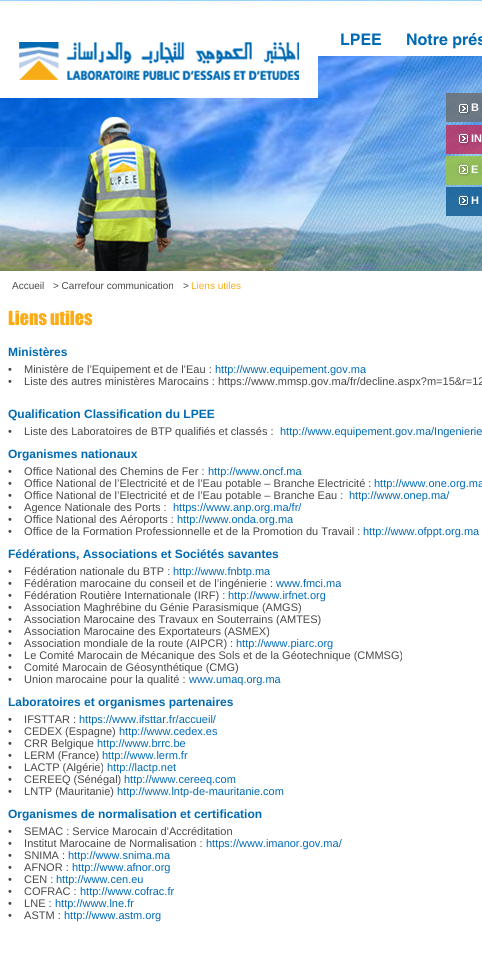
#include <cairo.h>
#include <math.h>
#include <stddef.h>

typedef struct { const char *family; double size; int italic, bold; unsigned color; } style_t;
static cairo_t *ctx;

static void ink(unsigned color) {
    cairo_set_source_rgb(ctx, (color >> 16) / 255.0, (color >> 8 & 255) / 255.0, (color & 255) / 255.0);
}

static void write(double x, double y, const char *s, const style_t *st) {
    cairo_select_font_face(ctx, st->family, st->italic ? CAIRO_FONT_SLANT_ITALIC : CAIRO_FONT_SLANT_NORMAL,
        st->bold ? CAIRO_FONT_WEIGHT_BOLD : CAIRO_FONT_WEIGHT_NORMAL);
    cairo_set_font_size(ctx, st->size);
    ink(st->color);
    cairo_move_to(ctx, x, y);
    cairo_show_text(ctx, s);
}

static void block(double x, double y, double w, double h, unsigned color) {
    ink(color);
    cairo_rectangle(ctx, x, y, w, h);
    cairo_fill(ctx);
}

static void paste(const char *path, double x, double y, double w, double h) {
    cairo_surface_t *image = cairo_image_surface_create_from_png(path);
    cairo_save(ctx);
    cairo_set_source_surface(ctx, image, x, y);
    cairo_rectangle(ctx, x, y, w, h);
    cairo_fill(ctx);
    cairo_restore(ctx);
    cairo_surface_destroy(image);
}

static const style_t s1 = {"Helvetica", 16, 0, 1, 0x006ab3};
static const style_t s2 = {"Liberation Sans", 11, 0, 1, 0xfefeff};
static const style_t s3 = {"Liberation Sans", 10, 0, 0, 0x484848};
static const style_t s4 = {"Liberation Sans", 10, 0, 0, 0xfaac16};
static const style_t s5 = {"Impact", 18, 0, 0, 0xfaac16};
static const style_t s6 = {"Liberation Sans", 12, 0, 1, 0x006ab3};
static const style_t s7 = {"Liberation Sans", 11, 0, 0, 0x484848};
static const style_t s8 = {"Liberation Sans", 11, 0, 0, 0x006ab3};

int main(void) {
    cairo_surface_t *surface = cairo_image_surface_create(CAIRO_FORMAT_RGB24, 482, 971);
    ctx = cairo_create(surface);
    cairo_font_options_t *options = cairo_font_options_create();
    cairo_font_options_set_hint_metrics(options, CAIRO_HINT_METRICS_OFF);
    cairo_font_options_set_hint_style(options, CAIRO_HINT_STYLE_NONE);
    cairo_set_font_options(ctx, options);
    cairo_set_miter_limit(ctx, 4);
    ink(0xffffff);
    cairo_paint(ctx);
    paste("pic1.png", 0, 0, 482, 272);
    block(0, 5, 318, 93, 0xffffff);
    paste("pic2.png", 19, 42, 280, 38);
    block(318, 5, 164, 51, 0xffffff);
    write(340, 45, "LPEE", &s1);
    write(406, 45, "Notre prés", &s1);
    paste("pic3.png", 446, 93, 36, 123);
    write(471, 111, "B", &s2);
    write(471, 142, "IN", &s2);
    write(471, 173, "E", &s2);
    write(471, 204, "H", &s2);
    write(12, 289, "Accueil", &s3);
    write(53, 289, "> Carrefour communication", &s3);
    write(183, 289, ">", &s3);
    write(191, 289, "Liens utiles", &s4);
    write(8, 325, "Liens utiles", &s5);
    write(8, 356, "Ministères", &s6);
    write(8, 373, "•", &s7);
    write(24, 373, "Ministère de l’Equipement et de l’Eau :", &s7);
    write(215, 373, "http://www.equipement.gov.ma", &s8);
    write(8, 385, "•    Liste des autres ministères Marocains : https://www.mmsp.gov.ma/fr/decline.aspx?m=15&r=12", &s7);
    write(8, 418, "Qualification Classification du LPEE", &s6);
    write(8, 435, "•    Liste des Laboratoires de BTP qualifiés et classés :", &s7);
    write(280, 435, "http://www.equipement.gov.ma/Ingenierie", &s8);
    write(8, 458, "Organismes nationaux", &s6);
    write(8, 475, "•    Office National des Chemins de Fer :", &s7);
    write(208, 475, "http://www.oncf.ma", &s8);
    write(8, 487, "•    Office National de l’Electricité et de l’Eau potable – Branche Electricité :", &s7);
    write(374, 487, "http://www.one.org.ma", &s8);
    write(8, 499, "•    Office National de l’Electricité et de l’Eau potable – Branche Eau :", &s7);
    write(349, 499, "http://www.onep.ma/", &s8);
    write(8, 511, "•    Agence Nationale des Ports :", &s7);
    write(173, 511, "https://www.anp.org.ma/fr/", &s8);
    write(8, 523, "•    Office National des Aéroports :", &s7);
    write(177, 523, "http://www.onda.org.ma", &s8);
    write(8, 535, "•    Office de la Formation Professionnelle et de la Promotion du Travail :", &s7);
    write(363, 535, "http://www.ofppt.org.ma", &s8);
    write(8, 558, "Fédérations, Associations et Sociétés savantes", &s6);
    write(8, 575, "•    Fédération nationale du BTP :", &s7);
    write(173, 575, "http://www.fnbtp.ma", &s8);
    write(8, 587, "•    Fédération marocaine du conseil et de l’ingénierie :", &s7);
    write(276, 587, "www.fmci.ma", &s8);
    write(8, 599, "•    Fédération Routière Internationale (IRF) :", &s7);
    write(228, 599, "http://www.irfnet.org", &s8);
    write(8, 611, "•    Association Maghrébine du Génie Parasismique (AMGS)", &s7);
    write(8, 623, "•    Association Marocaine des Travaux en Souterrains (AMTES)", &s7);
    write(8, 635, "•    Association Marocaine des Exportateurs (ASMEX)", &s7);
    write(8, 647, "•    Association mondiale de la route (AIPCR) :", &s7);
    write(236, 647, "http://www.piarc.org", &s8);
    write(8, 659, "•    Le Comité Marocain de Mécanique des Sols et de la Géotechnique (CMMSG)", &s7);
    write(8, 671, "•    Comité Marocain de Géosynthétique (CMG)", &s7);
    write(8, 683, "•    Union marocaine pour la qualité :", &s7);
    write(189, 683, "www.umaq.org.ma", &s8);
    write(8, 706, "Laboratoires et organismes partenaires", &s6);
    write(8, 723, "•    IFSTTAR :", &s7);
    write(79, 723, "https://www.ifsttar.fr/accueil/", &s8);
    write(8, 735, "•    CEDEX (Espagne)", &s7);
    write(119, 735, "http://www.cedex.es", &s8);
    write(8, 747, "•    CRR Belgique", &s7);
    write(97, 747, "http://www.brrc.be", &s8);
    write(8, 759, "•    LERM (France)", &s7);
    write(102, 759, "http://www.lerm.fr", &s8);
    write(8, 771, "•    LACTP (Algérie)", &s7);
    write(107, 771, "http://lactp.net", &s8);
    write(8, 783, "•    CEREEQ (Sénégal)", &s7);
    write(124, 783, "http://www.cereeq.com", &s8);
    write(8, 795, "•    LNTP (Mauritanie)", &s7);
    write(117, 795, "http://www.lntp-de-mauritanie.com", &s8);
    write(8, 818, "Organismes de normalisation et certification", &s6);
    write(8, 835, "•    SEMAC : Service Marocain d’Accréditation", &s7);
    write(8, 847, "•    Institut Marocaine de Normalisation :", &s7);
    write(206, 847, "https://www.imanor.gov.ma/", &s8);
    write(8, 859, "•    SNIMA :", &s7);
    write(68, 859, "http://www.snima.ma", &s8);
    write(8, 871, "•    AFNOR :", &s7);
    write(72, 871, "http://www.afnor.org", &s8);
    write(8, 883, "•    CEN :", &s7);
    write(56, 883, "http://www.cen.eu", &s8);
    write(8, 895, "•    COFRAC :", &s7);
    write(80, 895, "http://www.cofrac.fr", &s8);
    write(8, 907, "•    LNE :", &s7);
    write(55, 907, "http://www.lne.fr", &s8);
    write(8, 919, "•    ASTM :", &s7);
    write(64, 919, "http://www.astm.org", &s8);
    cairo_surface_write_to_png(surface, "screenshot.png");
    cairo_font_options_destroy(options);
    cairo_destroy(ctx);
    cairo_surface_destroy(surface);
    return 0;
}
